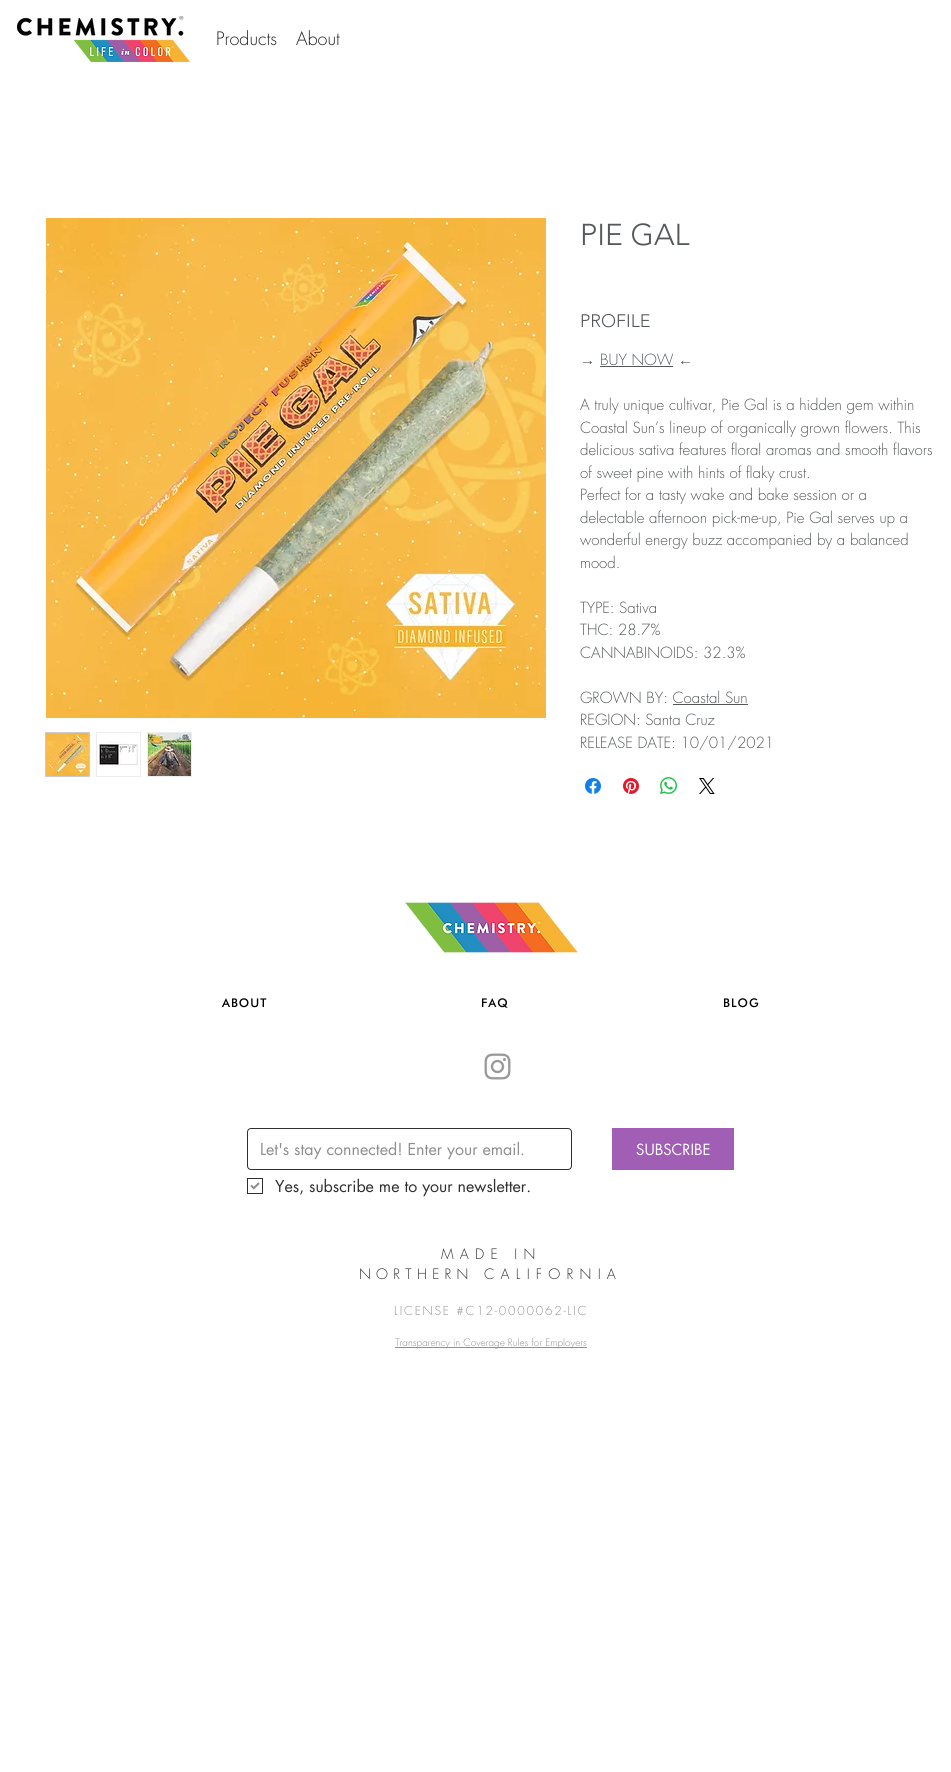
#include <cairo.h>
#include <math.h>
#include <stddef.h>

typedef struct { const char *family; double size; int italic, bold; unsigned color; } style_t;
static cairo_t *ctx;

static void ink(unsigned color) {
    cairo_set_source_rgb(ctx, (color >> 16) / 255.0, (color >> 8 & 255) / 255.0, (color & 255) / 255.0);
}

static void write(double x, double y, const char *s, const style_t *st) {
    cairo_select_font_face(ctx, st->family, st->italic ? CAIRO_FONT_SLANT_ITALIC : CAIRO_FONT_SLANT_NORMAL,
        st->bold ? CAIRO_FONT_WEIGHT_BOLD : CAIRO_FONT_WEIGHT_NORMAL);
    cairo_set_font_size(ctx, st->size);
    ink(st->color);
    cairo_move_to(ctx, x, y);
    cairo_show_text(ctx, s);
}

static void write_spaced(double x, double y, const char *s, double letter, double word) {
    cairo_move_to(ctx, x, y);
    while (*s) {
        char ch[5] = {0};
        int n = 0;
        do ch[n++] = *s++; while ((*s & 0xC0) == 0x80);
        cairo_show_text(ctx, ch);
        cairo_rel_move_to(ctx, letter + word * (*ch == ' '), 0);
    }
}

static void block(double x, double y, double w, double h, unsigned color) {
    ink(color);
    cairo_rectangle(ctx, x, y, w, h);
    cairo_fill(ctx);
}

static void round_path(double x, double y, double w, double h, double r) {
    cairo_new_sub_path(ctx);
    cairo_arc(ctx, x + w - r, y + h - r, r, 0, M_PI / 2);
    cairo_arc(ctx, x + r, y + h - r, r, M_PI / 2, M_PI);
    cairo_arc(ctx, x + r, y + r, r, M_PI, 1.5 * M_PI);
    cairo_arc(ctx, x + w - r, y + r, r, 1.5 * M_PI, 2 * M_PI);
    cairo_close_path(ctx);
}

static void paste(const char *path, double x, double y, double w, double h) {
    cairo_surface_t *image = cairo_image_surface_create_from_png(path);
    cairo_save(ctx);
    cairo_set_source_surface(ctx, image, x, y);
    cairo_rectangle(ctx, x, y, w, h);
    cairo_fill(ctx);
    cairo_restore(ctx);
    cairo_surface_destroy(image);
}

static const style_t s1 = {"futura Light", 18, 0, 0, 0x242323};
static const style_t s2 = {"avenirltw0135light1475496 Light", 30, 0, 0, 0x54585a};
static const style_t s3 = {"avenirltw0135light1475496 Light", 18, 0, 0, 0x54585a};
static const style_t s4 = {"Liberation Sans", 15, 0, 0, 0x54585a};
static const style_t s5 = {"futura Light", 15, 0, 0, 0x54585a};
static const style_t s6 = {"futura", 16, 0, 0, 0x8e8e8f};
static const style_t s7 = {"futura", 15, 0, 0, 0xffffff};
static const style_t s8 = {"futura", 16, 0, 0, 0x2f2f30};
static const style_t s9 = {"futura Light", 10, 0, 0, 0x8e8e8f};

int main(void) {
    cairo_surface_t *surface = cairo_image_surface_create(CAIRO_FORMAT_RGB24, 951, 1772);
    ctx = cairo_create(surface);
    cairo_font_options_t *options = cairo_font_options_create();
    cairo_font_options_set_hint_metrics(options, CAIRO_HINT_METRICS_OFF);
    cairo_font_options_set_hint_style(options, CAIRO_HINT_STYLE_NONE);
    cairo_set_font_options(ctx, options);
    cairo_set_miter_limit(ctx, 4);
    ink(0xffffff);
    cairo_paint(ctx);
    paste("pic1.png", 17, 16, 173, 46);
    write(216, 45, "Products", &s1);
    write(296, 45, "About", &s1);
    paste("pic2.png", 46, 218, 500, 500);
    cairo_rectangle(ctx, 45.5, 732.5, 44, 44);
    ink(0xc8cad3);
    cairo_set_line_width(ctx, 1);
    cairo_stroke(ctx);
    paste("pic3.png", 46, 733, 43, 43);
    cairo_rectangle(ctx, 96.5, 732.5, 44, 44);
    ink(0xededee);
    cairo_stroke(ctx);
    paste("pic4.png", 97, 741, 42, 24);
    cairo_rectangle(ctx, 147.5, 732.5, 44, 44);
    cairo_stroke(ctx);
    paste("pic5.png", 148, 733, 43, 43);
    write(580, 245, "PIE GAL", &s2);
    write(580, 327, "PROFILE", &s3);
    write(580, 365, "→", &s4);
    write(600, 365, "BUY NOW", &s5);
    block(600, 366, 73, 1, 0x54585a);
    write(678, 365, "←", &s4);
    write(580, 410, "A truly unique cultivar, Pie Gal is a hidden gem within", &s5);
    write(580, 433, "Coastal Sun’s lineup of organically grown flowers. This", &s5);
    write(580, 455, "delicious sativa features floral aromas and smooth flavors", &s5);
    write(580, 478, "of sweet pine with hints of flaky crust.", &s5);
    write(580, 500, "Perfect for a tasty wake and bake session or a", &s5);
    write(580, 523, "delectable afternoon pick-me-up, Pie Gal serves up a", &s5);
    write(580, 545, "wonderful energy buzz accompanied by a balanced", &s5);
    write(580, 568, "mood.", &s5);
    write(580, 613, "TYPE: Sativa", &s5);
    write(580, 635, "THC: 28.7%", &s5);
    write(580, 658, "CANNABINOIDS: 32.3%", &s5);
    write(580, 703, "GROWN BY: Coastal Sun", &s5);
    block(673, 704, 75, 1, 0x54585a);
    write(580, 725, "REGION: Santa Cruz", &s5);
    write(580, 748, "RELEASE DATE: 10/01/2021", &s5);
    paste("pic6.png", 585, 778, 16, 16);
    paste("pic7.png", 623, 778, 16, 16);
    paste("pic8.png", 660, 777, 17, 17);
    paste("pic9.png", 699, 778, 16, 16);
    paste("pic10.png", 405, 902, 173, 51);
    cairo_select_font_face(ctx, "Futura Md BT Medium", CAIRO_FONT_SLANT_NORMAL, CAIRO_FONT_WEIGHT_NORMAL);
    cairo_set_font_size(ctx, 12);
    ink(0x000000);
    write_spaced(222, 1007, "ABOUT", 1, 0);
    write_spaced(481, 1007, "FAQ", 1, 0);
    write_spaced(723, 1007, "BLOG", 1, 0);
    paste("pic11.png", 484, 1053, 27, 27);
    round_path(247.5, 1128.5, 324, 41, 3.5);
    ink(0x2f2f30);
    cairo_stroke(ctx);
    write(260, 1155, "Let's stay connected! Enter your email.", &s6);
    block(612, 1128, 122, 42, 0xa05eb5);
    write(636, 1155, "SUBSCRIBE", &s7);
    cairo_rectangle(ctx, 247.5, 1178.5, 15, 15);
    ink(0x2f2f30);
    cairo_stroke(ctx);
    paste("pic12.png", 250, 1182, 10, 8);
    write(275, 1192, "Yes, subscribe me to your newsletter.", &s8);
    cairo_select_font_face(ctx, "futura Light", CAIRO_FONT_SLANT_NORMAL, CAIRO_FONT_WEIGHT_NORMAL);
    cairo_set_font_size(ctx, 14);
    write_spaced(441, 1259, "MADE IN", 6.25, 0);
    write_spaced(359, 1279, "NORTHERN", 5.25, 0);
    write_spaced(484, 1279, "CALIFORNIA", 6.25, 0);
    cairo_set_font_size(ctx, 12);
    ink(0x8e8e8f);
    write_spaced(394, 1315, "LICENSE #C12-0000062-LIC", 1.8, 0);
    block(395, 1347, 192, 1, 0x8f8f8f);
    write(395, 1346, "Transparency in Coverage Rules for Employers", &s9);
    cairo_surface_write_to_png(surface, "screenshot.png");
    cairo_font_options_destroy(options);
    cairo_destroy(ctx);
    cairo_surface_destroy(surface);
    return 0;
}
